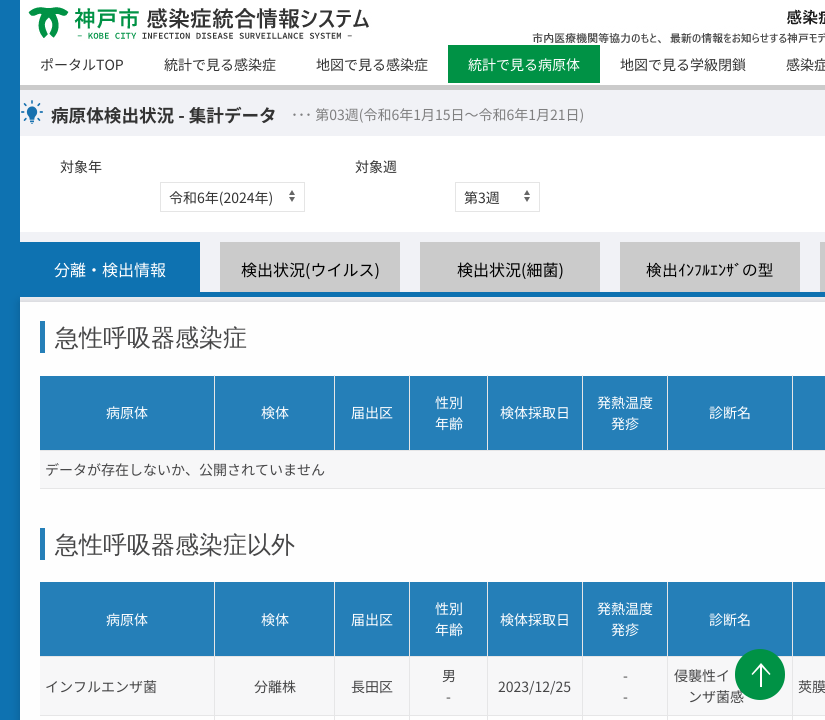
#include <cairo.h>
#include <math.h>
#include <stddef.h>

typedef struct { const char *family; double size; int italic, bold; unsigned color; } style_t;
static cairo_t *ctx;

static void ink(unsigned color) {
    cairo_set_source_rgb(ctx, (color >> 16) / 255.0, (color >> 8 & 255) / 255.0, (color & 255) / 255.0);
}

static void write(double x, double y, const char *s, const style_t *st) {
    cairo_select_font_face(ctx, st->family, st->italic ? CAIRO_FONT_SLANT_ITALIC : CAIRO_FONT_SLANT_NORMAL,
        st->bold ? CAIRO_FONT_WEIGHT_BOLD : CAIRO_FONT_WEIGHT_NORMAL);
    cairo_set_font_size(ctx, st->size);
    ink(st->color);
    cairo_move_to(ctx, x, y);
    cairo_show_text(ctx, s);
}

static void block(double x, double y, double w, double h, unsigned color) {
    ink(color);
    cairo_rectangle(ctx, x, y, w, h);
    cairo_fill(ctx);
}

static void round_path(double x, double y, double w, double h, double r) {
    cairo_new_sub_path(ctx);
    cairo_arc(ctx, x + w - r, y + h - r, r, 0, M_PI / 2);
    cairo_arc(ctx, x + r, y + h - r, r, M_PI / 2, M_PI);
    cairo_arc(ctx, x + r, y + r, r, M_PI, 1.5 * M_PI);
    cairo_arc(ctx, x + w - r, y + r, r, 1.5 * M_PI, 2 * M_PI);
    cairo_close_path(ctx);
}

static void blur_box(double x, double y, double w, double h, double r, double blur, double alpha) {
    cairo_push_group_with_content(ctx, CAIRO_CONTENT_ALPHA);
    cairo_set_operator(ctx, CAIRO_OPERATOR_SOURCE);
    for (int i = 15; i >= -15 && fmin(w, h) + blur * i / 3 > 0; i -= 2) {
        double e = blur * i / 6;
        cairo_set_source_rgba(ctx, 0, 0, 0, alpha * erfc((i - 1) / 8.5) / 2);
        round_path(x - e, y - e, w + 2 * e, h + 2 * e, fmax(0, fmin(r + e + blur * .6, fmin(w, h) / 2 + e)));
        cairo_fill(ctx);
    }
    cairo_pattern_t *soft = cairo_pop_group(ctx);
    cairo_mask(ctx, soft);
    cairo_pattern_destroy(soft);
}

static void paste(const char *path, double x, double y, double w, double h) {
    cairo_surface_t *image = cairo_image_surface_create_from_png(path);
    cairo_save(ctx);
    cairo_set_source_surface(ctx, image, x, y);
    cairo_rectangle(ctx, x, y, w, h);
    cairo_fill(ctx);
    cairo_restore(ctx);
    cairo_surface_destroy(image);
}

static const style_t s1 = {"Noto Sans JP", 14, 0, 0, 0x333333};
static const style_t s2 = {"Noto Sans JP", 14, 0, 0, 0xffffff};
static const style_t s3 = {"Noto Sans JP", 17.6, 0, 1, 0x333333};
static const style_t s4 = {"Noto Sans JP", 14, 0, 0, 0x7f7f80};
static const style_t s5 = {"Noto Sans JP", 16, 0, 0, 0xffffff};
static const style_t s6 = {"Noto Sans JP", 16, 0, 0, 0x000000};
static const style_t s7 = {"IPAPGothic", 16, 0, 0, 0x000000};
static const style_t s8 = {"WenQuanYi Zen Hei Medium", 24, 0, 0, 0x464647};
static const style_t s9 = {"Noto Sans JP", 14, 0, 0, 0x464647};

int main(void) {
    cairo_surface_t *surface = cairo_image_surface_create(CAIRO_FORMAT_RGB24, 825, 720);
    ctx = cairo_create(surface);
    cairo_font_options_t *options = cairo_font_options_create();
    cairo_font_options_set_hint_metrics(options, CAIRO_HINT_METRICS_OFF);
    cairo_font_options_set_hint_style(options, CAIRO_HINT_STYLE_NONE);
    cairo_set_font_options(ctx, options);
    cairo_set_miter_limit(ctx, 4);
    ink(0xf1f2f6);
    cairo_paint(ctx);
    block(20, 85, 805, 5, 0xcbcbcb);
    block(20, 0, 805, 85, 0xffffff);
    block(0, 0, 20, 720, 0x0e72b1);
    paste("pic1.png", 28, 7, 797, 37);
    write(40, 70, "ポータルTOP", &s1);
    write(164, 70, "統計で見る感染症", &s1);
    write(316, 70, "地図で見る感染症", &s1);
    block(448, 45, 152, 38, 0x009245);
    write(468, 70, "統計で見る病原体", &s2);
    write(620, 70, "地図で見る学級閉鎖", &s1);
    write(786, 70, "感染症", &s1);
    paste("pic2.png", 21, 100, 22, 24);
    write(51, 122, "病原体検出状況 - 集計データ", &s3);
    write(291, 120, "･･･ 第03週(令和6年1月15日～令和6年1月21日)", &s4);
    block(20, 136, 805, 96, 0xffffff);
    write(60, 172, "対象年", &s1);
    paste("pic3.png", 289, 190, 6, 12);
    cairo_rectangle(ctx, 160.5, 182.5, 144, 29);
    ink(0xe5e5e5);
    cairo_set_line_width(ctx, 1);
    cairo_stroke(ctx);
    write(169, 203, "令和6年(2024年)", &s1);
    write(355, 172, "対象週", &s1);
    paste("pic3.png", 524, 190, 6, 12);
    cairo_rectangle(ctx, 455.5, 182.5, 84, 29);
    ink(0xe5e5e5);
    cairo_stroke(ctx);
    write(464, 203, "第3週", &s1);
    block(20, 242, 180, 50, 0x0e72b1);
    write(54, 276, "分離・検出情報", &s5);
    block(220, 242, 180, 50, 0xcbcbcb);
    write(241, 276, "検出状況(ウイルス)", &s6);
    block(420, 242, 180, 50, 0xcbcbcb);
    write(457, 276, "検出状況(細菌)", &s6);
    block(620, 242, 180, 50, 0xcbcbcb);
    write(646, 276, "検出ｲﾝﾌﾙｴﾝｻﾞの型", &s7);
    block(820, 242, 5, 55, 0xcbcbcb);
    ink(0x000000);
    blur_box(20, 302, 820, 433, 0, 5, 0.18);
    block(20, 292, 805, 5, 0x0e72b1);
    block(20, 302, 805, 418, 0xfefefe);
    block(40, 321, 5, 32, 0x257fb8);
    write(55, 346, "急性呼吸器感染症", &s8);
    block(40, 376, 174, 74, 0x257fb8);
    write(106, 418, "病原体", &s2);
    block(215, 376, 119, 74, 0x257fb8);
    block(40, 450, 785, 1, 0xe6e6e7);
    block(214, 375, 1, 76, 0xe6e6e7);
    write(261, 418, "検体", &s2);
    block(335, 376, 74, 74, 0x257fb8);
    block(334, 375, 1, 76, 0xe6e6e7);
    write(351, 418, "届出区", &s2);
    block(410, 376, 77, 74, 0x257fb8);
    block(409, 375, 1, 76, 0xe6e6e7);
    write(435, 408, "性別", &s2);
    write(435, 429, "年齢", &s2);
    block(488, 376, 94, 74, 0x257fb8);
    block(487, 375, 1, 76, 0xe6e6e7);
    write(500, 418, "検体採取日", &s2);
    block(583, 376, 84, 74, 0x257fb8);
    block(582, 375, 1, 76, 0xe6e6e7);
    write(597, 408, "発熱温度", &s2);
    write(611, 429, "発疹", &s2);
    block(668, 376, 124, 74, 0x257fb8);
    block(667, 375, 1, 76, 0xe6e6e7);
    write(709, 418, "診断名", &s2);
    block(793, 376, 32, 74, 0x257fb8);
    block(792, 375, 1, 76, 0xe6e6e7);
    block(40, 451, 785, 37, 0xf7f7f8);
    block(40, 488, 785, 1, 0xe6e6e7);
    write(45, 475, "データが存在しないか、公開されていません", &s9);
    block(40, 528, 5, 32, 0x257fb8);
    write(55, 553, "急性呼吸器感染症以外", &s8);
    block(40, 582, 174, 74, 0x257fb8);
    write(106, 625, "病原体", &s2);
    block(215, 582, 119, 74, 0x257fb8);
    write(261, 625, "検体", &s2);
    block(335, 582, 74, 74, 0x257fb8);
    write(351, 625, "届出区", &s2);
    block(410, 582, 77, 74, 0x257fb8);
    write(435, 614, "性別", &s2);
    write(435, 635, "年齢", &s2);
    block(488, 582, 94, 74, 0x257fb8);
    write(500, 625, "検体採取日", &s2);
    block(583, 582, 84, 74, 0x257fb8);
    write(597, 614, "発熱温度", &s2);
    write(611, 635, "発疹", &s2);
    block(668, 582, 124, 74, 0x257fb8);
    write(709, 625, "診断名", &s2);
    block(793, 582, 32, 74, 0x257fb8);
    block(40, 715, 785, 1, 0xe6e6e7);
    block(40, 657, 785, 58, 0xf7f7f8);
    block(40, 656, 785, 1, 0xe6e6e7);
    block(214, 582, 1, 138, 0xe6e6e7);
    block(334, 582, 1, 138, 0xe6e6e7);
    block(409, 582, 1, 138, 0xe6e6e7);
    block(487, 582, 1, 138, 0xe6e6e7);
    block(582, 582, 1, 138, 0xe6e6e7);
    block(667, 582, 1, 138, 0xe6e6e7);
    block(792, 582, 1, 138, 0xe6e6e7);
    write(45, 692, "インフルエンザ菌", &s9);
    write(254, 692, "分離株", &s9);
    write(351, 692, "長田区", &s9);
    write(442, 681, "男", &s9);
    write(446, 702, "-", &s9);
    write(498, 692, "2023/12/25", &s9);
    write(623, 681, "-", &s9);
    write(623, 702, "-", &s9);
    write(674, 681, "侵襲性イ", &s9);
    write(688, 702, "ンザ菌感", &s9);
    write(798, 692, "莢膜", &s9);
    ink(0x009245);
    round_path(735, 649, 50, 51, 25);
    cairo_fill(ctx);
    ink(0xffffff);
    cairo_new_path(ctx);
    cairo_move_to(ctx, 761, 663);
    cairo_line_to(ctx, 770.5, 674);
    cairo_line_to(ctx, 769.5, 675);
    cairo_line_to(ctx, 761, 666);
    cairo_line_to(ctx, 752.5, 675);
    cairo_line_to(ctx, 751.5, 674);
    cairo_close_path(ctx);
    cairo_fill(ctx);
    block(760, 665, 2, 22, 0xffffff);
    cairo_surface_write_to_png(surface, "screenshot.png");
    cairo_font_options_destroy(options);
    cairo_destroy(ctx);
    cairo_surface_destroy(surface);
    return 0;
}
